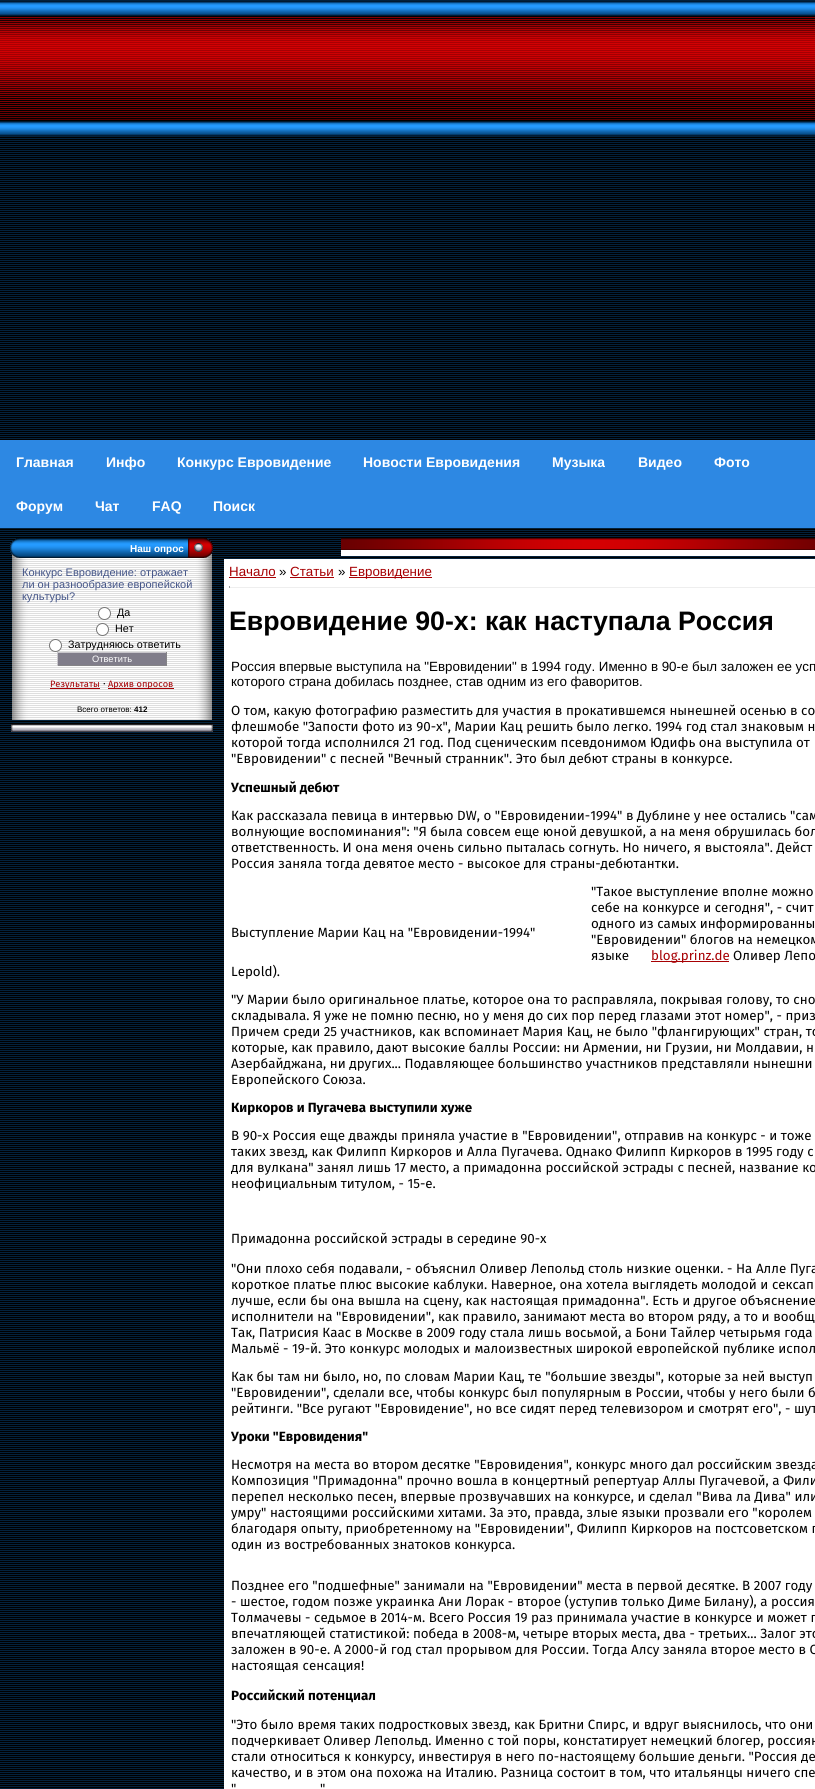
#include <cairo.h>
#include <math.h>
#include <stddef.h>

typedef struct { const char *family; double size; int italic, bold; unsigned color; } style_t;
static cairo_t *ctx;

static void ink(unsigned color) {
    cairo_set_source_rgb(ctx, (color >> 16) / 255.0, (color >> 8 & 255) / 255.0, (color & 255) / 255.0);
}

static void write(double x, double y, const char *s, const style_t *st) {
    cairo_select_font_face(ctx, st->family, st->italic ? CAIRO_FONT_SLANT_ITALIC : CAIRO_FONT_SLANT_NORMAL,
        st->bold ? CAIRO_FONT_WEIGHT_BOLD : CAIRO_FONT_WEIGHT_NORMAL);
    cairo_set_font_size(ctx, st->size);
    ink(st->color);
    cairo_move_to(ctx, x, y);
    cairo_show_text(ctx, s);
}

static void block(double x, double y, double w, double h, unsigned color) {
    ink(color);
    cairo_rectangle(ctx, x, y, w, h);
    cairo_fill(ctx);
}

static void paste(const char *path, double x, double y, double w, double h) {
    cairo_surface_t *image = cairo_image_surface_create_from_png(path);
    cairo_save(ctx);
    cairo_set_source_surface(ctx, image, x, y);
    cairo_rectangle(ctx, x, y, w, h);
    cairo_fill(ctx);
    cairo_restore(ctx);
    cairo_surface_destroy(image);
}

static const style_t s1 = {"Liberation Sans", 14, 0, 1, 0xffffff};
static const style_t s2 = {"Liberation Sans", 10, 0, 1, 0xffffff};
static const style_t s3 = {"Liberation Sans", 11, 0, 0, 0x445588};
static const style_t s4 = {"Liberation Sans", 10.75, 0, 0, 0x000000};
static const style_t s5 = {"Liberation Sans", 9.25, 0, 0, 0xffffff};
static const style_t s6 = {"Fira Sans", 9.25, 0, 0, 0xa70003};
static const style_t s7 = {"Fira Sans", 10.75, 0, 0, 0x000000};
static const style_t s8 = {"Liberation Sans", 8, 0, 0, 0x000000};
static const style_t s9 = {"Liberation Sans", 8, 0, 1, 0x000000};
static const style_t s10 = {"Liberation Sans", 13.35, 0, 0, 0xa70003};
static const style_t s11 = {"Liberation Sans", 13.35, 0, 0, 0x000000};
static const style_t s12 = {"Liberation Sans", 26.7, 0, 1, 0x000000};
static const style_t s13 = {"Fira Sans", 13.35, 0, 0, 0x000000};
static const style_t s14 = {"Fira Sans", 13.35, 0, 1, 0x000000};
static const style_t s15 = {"Fira Sans", 13.35, 0, 0, 0xa70003};

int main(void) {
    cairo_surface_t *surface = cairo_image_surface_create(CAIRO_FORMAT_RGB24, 815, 1789);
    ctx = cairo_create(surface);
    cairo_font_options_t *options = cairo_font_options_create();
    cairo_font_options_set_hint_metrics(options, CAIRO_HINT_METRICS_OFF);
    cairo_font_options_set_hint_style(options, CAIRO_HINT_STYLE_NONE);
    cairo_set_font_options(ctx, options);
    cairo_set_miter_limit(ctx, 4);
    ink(0x03223c);
    cairo_paint(ctx);
    paste("pic1.png", 0, 136, 815, 1652);
    paste("pic2.png", 0, 1, 815, 135);
    block(0, 440, 815, 88, 0x2d88e3);
    write(16, 467, "Главная", &s1);
    write(106, 467, "Инфо", &s1);
    write(177, 467, "Конкурс Евровидение", &s1);
    write(363, 467, "Новости Евровидения", &s1);
    write(552, 467, "Музыка", &s1);
    write(638, 467, "Видео", &s1);
    write(714, 467, "Фото", &s1);
    write(16, 511, "Форум", &s1);
    write(95, 511, "Чат", &s1);
    write(152, 511, "FAQ", &s1);
    write(213, 511, "Поиск", &s1);
    paste("pic3.png", 10, 538, 203, 20);
    write(130, 552, "Наш опрос", &s2);
    paste("pic4.png", 12, 558, 200, 162);
    write(22, 576, "Конкурс Евровидение: отражает", &s3);
    write(22, 588, "ли он разнообразие европейской", &s3);
    write(22, 600, "культуры?", &s3);
    ink(0xffffff);
    cairo_new_path(ctx);
    cairo_arc(ctx, 104.5, 613.5, 6, 0, 2 * M_PI);
    cairo_fill_preserve(ctx);
    ink(0x767676);
    cairo_set_line_width(ctx, 1);
    cairo_stroke(ctx);
    write(117, 616, "Да", &s4);
    ink(0xffffff);
    cairo_new_path(ctx);
    cairo_arc(ctx, 102.5, 629.5, 6, 0, 2 * M_PI);
    cairo_fill_preserve(ctx);
    ink(0x767676);
    cairo_stroke(ctx);
    write(115, 632, "Нет", &s4);
    ink(0xffffff);
    cairo_new_path(ctx);
    cairo_arc(ctx, 55.5, 645.5, 6, 0, 2 * M_PI);
    cairo_fill_preserve(ctx);
    ink(0x767676);
    cairo_stroke(ctx);
    write(68, 648, "Затрудняюсь ответить", &s4);
    block(58, 653, 108, 12, 0x807d8a);
    block(57, 652, 110, 1, 0xc8c6cb);
    block(166, 652, 1, 14, 0x858487);
    block(57, 665, 110, 1, 0x858487);
    block(57, 652, 1, 14, 0xc8c6cb);
    write(92, 662, "Ответить", &s5);
    block(50, 688, 50, 1, 0xa70003);
    write(50, 687, "Результаты", &s6);
    write(103, 687, "·", &s7);
    block(108, 688, 66, 1, 0xa70003);
    write(108, 687, "Архив опросов", &s6);
    write(77, 712, "Всего ответов:", &s8);
    write(134, 712, "412", &s9);
    paste("pic5.png", 11, 724, 202, 8);
    paste("pic6.png", 341, 538, 474, 18);
    block(224, 559, 591, 1230, 0xffffff);
    write(229, 576, "Начало", &s10);
    block(229, 577, 47, 1, 0xa70003);
    write(279, 576, "»", &s11);
    write(290, 576, "Статьи", &s10);
    block(290, 577, 44, 1, 0xa70003);
    write(338, 576, "»", &s11);
    block(349, 577, 83, 1, 0xa70003);
    write(349, 576, "Евровидение", &s10);
    block(229, 587, 586, 1, 0xeeeeee);
    block(229, 586, 1, 2, 0x9f9f9f);
    write(229, 630, "Евровидение 90-х: как наступала Россия", &s12);
    write(231, 671, "Россия впервые выступила на \"Евровидении\" в 1994 году. Именно в 90-е был заложен ее усп", &s11);
    write(231, 686, "которого страна добилась позднее, став одним из его фаворитов.", &s11);
    write(231, 715, "О том, какую фотографию разместить для участия в прокатившемся нынешней осенью в со", &s13);
    write(231, 731, "флешмобе \"Запости фото из 90-х\", Марии Кац решить было легко. 1994 год стал знаковым н", &s13);
    write(231, 747, "которой тогда исполнился 21 год. Под сценическим псевдонимом Юдифь она выступила от", &s13);
    write(231, 763, "\"Евровидении\" с песней \"Вечный странник\". Это был дебют страны в конкурсе.", &s13);
    write(231, 792, "Успешный дебют", &s14);
    write(231, 820, "Как рассказала певица в интервью DW, о \"Евровидении-1994\" в Дублине у нее остались \"сам", &s13);
    write(231, 836, "волнующие воспоминания\": \"Я была совсем еще юной девушкой, а на меня обрушилась бол", &s13);
    write(231, 852, "ответственность. И она меня очень сильно пыталась согнуть. Но ничего, я выстояла\". Дейст", &s13);
    write(231, 868, "Россия заняла тогда девятое место - высокое для страны-дебютантки.", &s13);
    write(591, 896, "\"Такое выступление вполне можно", &s13);
    write(591, 912, "себе на конкурсе и сегодня\", - счит", &s13);
    write(591, 928, "одного из самых информированны", &s13);
    write(591, 944, "\"Евровидении\" блогов на немецком", &s13);
    write(591, 960, "языке", &s13);
    block(651, 961, 78, 1, 0xa70003);
    write(651, 960, "blog.prinz.de", &s15);
    write(733, 960, "Оливер Лепо", &s13);
    write(231, 976, "Lepold).", &s13);
    write(231, 937, "Выступление Марии Кац на \"Евровидении-1994\"", &s13);
    write(231, 1004, "\"У Марии было оригинальное платье, которое она то расправляла, покрывая голову, то сно", &s13);
    write(231, 1020, "складывала. Я уже не помню песню, но у меня до сих пор перед глазами этот номер\", - приз", &s13);
    write(231, 1036, "Причем среди 25 участников, как вспоминает Мария Кац, не было \"флангирующих\" стран, то", &s13);
    write(231, 1052, "которые, как правило, дают высокие баллы России: ни Армении, ни Грузии, ни Молдавии, н", &s13);
    write(231, 1068, "Азербайджана, ни других... Подавляющее большинство участников представляли нынешни", &s13);
    write(231, 1084, "Европейского Союза.", &s13);
    write(231, 1112, "Киркоров и Пугачева выступили хуже", &s14);
    write(231, 1140, "В 90-х Россия еще дважды приняла участие в \"Евровидении\", отправив на конкурс - и тоже", &s13);
    write(231, 1156, "таких звезд, как Филипп Киркоров и Алла Пугачева. Однако Филипп Киркоров в 1995 году с", &s13);
    write(231, 1172, "для вулкана\" занял лишь 17 место, а примадонна российской эстрады с песней, название ко", &s13);
    write(231, 1188, "неофициальным титулом, - 15-е.", &s13);
    write(231, 1243, "Примадонна российской эстрады в середине 90-х", &s13);
    write(231, 1273, "\"Они плохо себя подавали, - объяснил Оливер Лепольд столь низкие оценки. - На Алле Пуга", &s13);
    write(231, 1289, "короткое платье плюс высокие каблуки. Наверное, она хотела выглядеть молодой и сексап", &s13);
    write(231, 1305, "лучше, если бы она вышла на сцену, как настоящая примадонна\". Есть и другое объяснение", &s13);
    write(231, 1321, "исполнители на \"Евровидении\", как правило, занимают места во втором ряду, а то и вообщ", &s13);
    write(231, 1337, "Так, Патрисия Каас в Москве в 2009 году стала лишь восьмой, а Бони Тайлер четырьмя года", &s13);
    write(231, 1353, "Мальмё - 19-й. Это конкурс молодых и малоизвестных широкой европейской публике испол", &s13);
    write(231, 1381, "Как бы там ни было, но, по словам Марии Кац, те \"большие звезды\", которые за ней выступ", &s13);
    write(231, 1397, "\"Евровидении\", сделали все, чтобы конкурс был популярным в России, чтобы у него были б", &s13);
    write(231, 1413, "рейтинги. \"Все ругают \"Евровидение\", но все сидят перед телевизором и смотрят его\", - шут", &s13);
    write(231, 1441, "Уроки \"Евровидения\"", &s14);
    write(231, 1469, "Несмотря на места во втором десятке \"Евровидения\", конкурс много дал российским звезда", &s13);
    write(231, 1485, "Композиция \"Примадонна\" прочно вошла в концертный репертуар Аллы Пугачевой, а Фили", &s13);
    write(231, 1501, "перепел несколько песен, впервые прозвучавших на конкурсе, и сделал \"Вива ла Дива\" или", &s13);
    write(231, 1517, "умру\" настоящими российскими хитами. За это, правда, злые языки прозвали его \"королем", &s13);
    write(231, 1533, "благодаря опыту, приобретенному на \"Евровидении\", Филипп Киркоров на постсоветском п", &s13);
    write(231, 1549, "один из востребованных знатоков конкурса.", &s13);
    write(231, 1590, "Позднее его \"подшефные\" занимали на \"Евровидении\" места в первой десятке. В 2007 году", &s13);
    write(231, 1606, "- шестое, годом позже украинка Ани Лорак - второе (уступив только Диме Билану), а россия", &s13);
    write(231, 1622, "Толмачевы - седьмое в 2014-м. Всего Россия 19 раз принимала участие в конкурсе и может п", &s13);
    write(231, 1638, "впечатляющей статистикой: победа в 2008-м, четыре вторых места, два - третьих... Залог это", &s13);
    write(231, 1654, "заложен в 90-е. А 2000-й год стал прорывом для России. Тогда Алсу заняла второе место в С", &s13);
    write(231, 1670, "настоящая сенсация!", &s13);
    write(231, 1700, "Российский потенциал", &s14);
    write(231, 1729, "\"Это было время таких подростковых звезд, как Бритни Спирс, и вдруг выяснилось, что они", &s13);
    write(231, 1745, "подчеркивает Оливер Лепольд. Именно с той поры, констатирует немецкий блогер, россиян", &s13);
    write(231, 1761, "стали относиться к конкурсу, инвестируя в него по-настоящему большие деньги. \"Россия де", &s13);
    write(231, 1777, "качество, и в этом она похожа на Италию. Разница состоит в том, что итальянцы ничего спе", &s13);
    write(231, 1793, "\"", &s13);
    write(320, 1793, "\"", &s13);
    cairo_surface_write_to_png(surface, "screenshot.png");
    cairo_font_options_destroy(options);
    cairo_destroy(ctx);
    cairo_surface_destroy(surface);
    return 0;
}
